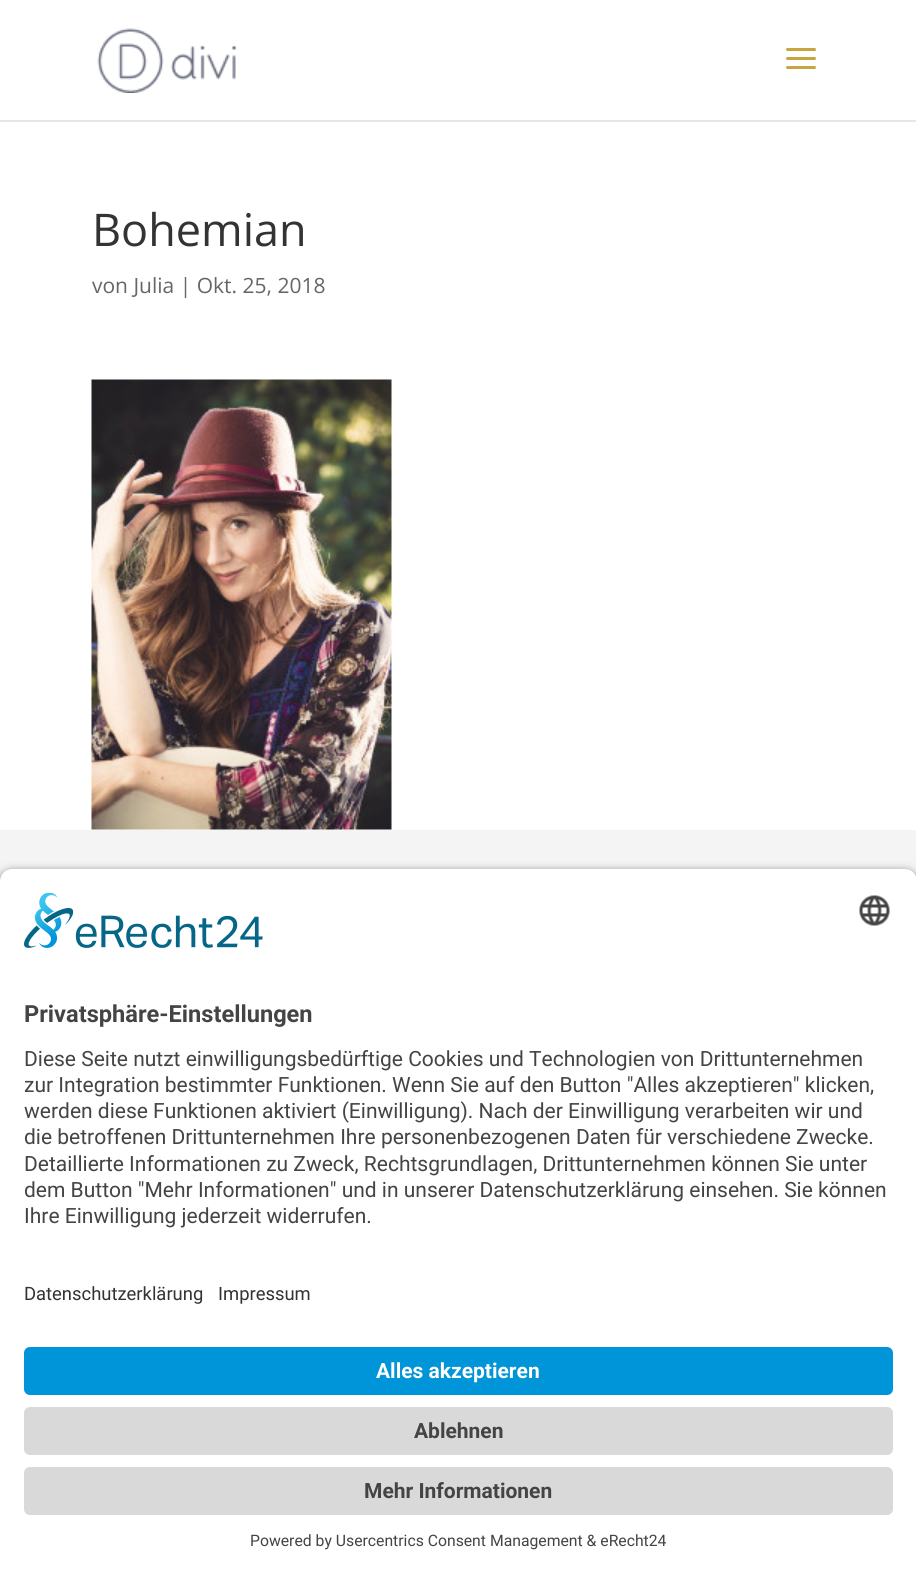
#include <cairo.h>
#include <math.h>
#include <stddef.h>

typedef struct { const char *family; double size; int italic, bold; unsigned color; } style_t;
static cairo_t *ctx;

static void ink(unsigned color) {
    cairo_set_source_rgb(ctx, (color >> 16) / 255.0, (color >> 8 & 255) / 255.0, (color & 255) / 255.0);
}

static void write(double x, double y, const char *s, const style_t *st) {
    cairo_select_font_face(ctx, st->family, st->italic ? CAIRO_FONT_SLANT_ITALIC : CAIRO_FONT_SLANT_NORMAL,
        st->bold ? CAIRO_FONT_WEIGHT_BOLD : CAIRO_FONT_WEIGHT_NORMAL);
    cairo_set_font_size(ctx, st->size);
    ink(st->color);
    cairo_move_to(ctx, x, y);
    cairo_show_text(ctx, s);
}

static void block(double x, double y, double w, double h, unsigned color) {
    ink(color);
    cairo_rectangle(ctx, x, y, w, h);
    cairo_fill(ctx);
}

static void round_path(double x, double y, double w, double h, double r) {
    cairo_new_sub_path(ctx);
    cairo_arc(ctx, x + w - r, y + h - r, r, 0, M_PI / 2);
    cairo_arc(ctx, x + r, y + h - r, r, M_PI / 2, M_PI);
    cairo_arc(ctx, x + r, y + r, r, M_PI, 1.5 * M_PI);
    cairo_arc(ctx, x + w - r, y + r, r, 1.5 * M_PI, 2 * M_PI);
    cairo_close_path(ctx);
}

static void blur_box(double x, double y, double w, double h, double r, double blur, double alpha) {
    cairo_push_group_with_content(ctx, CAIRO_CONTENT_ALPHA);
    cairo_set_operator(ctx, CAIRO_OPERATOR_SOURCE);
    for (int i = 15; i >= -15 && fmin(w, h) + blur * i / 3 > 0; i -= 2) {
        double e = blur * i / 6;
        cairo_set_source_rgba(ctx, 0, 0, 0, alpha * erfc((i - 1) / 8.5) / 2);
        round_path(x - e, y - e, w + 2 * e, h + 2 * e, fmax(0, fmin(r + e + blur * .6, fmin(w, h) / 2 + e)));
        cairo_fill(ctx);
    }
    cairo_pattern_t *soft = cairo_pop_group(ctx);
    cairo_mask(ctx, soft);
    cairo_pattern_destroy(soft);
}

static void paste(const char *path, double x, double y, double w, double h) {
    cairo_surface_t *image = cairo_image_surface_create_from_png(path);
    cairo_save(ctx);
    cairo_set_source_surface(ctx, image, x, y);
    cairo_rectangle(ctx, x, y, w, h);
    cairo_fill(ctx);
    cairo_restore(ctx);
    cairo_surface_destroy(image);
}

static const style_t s1 = {"Open Sans", 45, 0, 0, 0x333333};
static const style_t s2 = {"Open Sans", 21, 0, 0, 0x666666};
static const style_t s3 = {"Roboto", 23.6, 0, 1, 0x444444};
static const style_t s4 = {"Roboto", 21, 0, 0, 0x444444};
static const style_t s5 = {"Roboto", 18.4, 0, 0, 0x333333};
static const style_t s6 = {"Roboto", 21, 0, 1, 0xffffff};
static const style_t s7 = {"Roboto", 21, 0, 1, 0x444444};
static const style_t s8 = {"Roboto", 15.75, 0, 0, 0x444444};

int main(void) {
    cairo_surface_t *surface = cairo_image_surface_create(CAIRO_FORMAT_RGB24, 916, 1574);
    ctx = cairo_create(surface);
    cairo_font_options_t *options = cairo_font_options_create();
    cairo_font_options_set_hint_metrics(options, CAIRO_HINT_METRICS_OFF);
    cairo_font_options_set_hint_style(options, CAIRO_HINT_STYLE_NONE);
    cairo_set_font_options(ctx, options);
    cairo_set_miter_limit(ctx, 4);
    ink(0xf4f4f4);
    cairo_paint(ctx);
    ink(0xe6e6e6);
    cairo_new_path(ctx);
    cairo_move_to(ctx, 0, 120);
    cairo_line_to(ctx, 0, 122);
    cairo_line_to(ctx, 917, 122);
    cairo_line_to(ctx, 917, 2);
    cairo_line_to(ctx, 916, 2);
    cairo_line_to(ctx, 916, 120);
    cairo_close_path(ctx);
    cairo_fill(ctx);
    block(0, 0, 916, 120, 0xffffff);
    paste("pic1.png", 97, 28, 140, 65);
    paste("pic2.png", 786, 48, 30, 21);
    block(0, 122, 916, 708, 0xffffff);
    write(92, 246, "Bohemian", &s1);
    write(92, 293, "von Julia | Okt. 25, 2018", &s2);
    paste("pic3.png", 91, 379, 301, 451);
    ink(0x000000);
    blur_box(0, 873, 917, 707, 12, 5, 0.8);
    ink(0xffffff);
    cairo_new_path(ctx);
    cairo_move_to(ctx, 12, 869);
    cairo_line_to(ctx, 905, 869);
    cairo_curve_to(ctx, 911.5, 869, 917, 874.5, 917, 881);
    cairo_line_to(ctx, 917, 1260);
    cairo_line_to(ctx, 0, 1260);
    cairo_line_to(ctx, 0, 881);
    cairo_curve_to(ctx, 0, 874.5, 5.5, 869, 12, 869);
    cairo_close_path(ctx);
    cairo_fill(ctx);
    paste("pic4.png", 24, 893, 239, 55);
    paste("pic5.png", 859, 895, 31, 31);
    write(24, 1022, "Privatsphäre-Einstellungen", &s3);
    write(24, 1066, "Diese Seite nutzt einwilligungsbedürftige Cookies und Technologien von Drittunternehmen", &s4);
    write(24, 1092, "zur Integration bestimmter Funktionen. Wenn Sie auf den Button \"Alles akzeptieren\" klicken,", &s4);
    write(24, 1118, "werden diese Funktionen aktiviert (Einwilligung). Nach der Einwilligung verarbeiten wir und", &s4);
    write(24, 1144, "die betroffenen Drittunternehmen Ihre personenbezogenen Daten für verschiedene Zwecke.", &s4);
    write(24, 1171, "Detaillierte Informationen zu Zweck, Rechtsgrundlagen, Drittunternehmen können Sie unter", &s4);
    write(24, 1197, "dem Button \"Mehr Informationen\" und in unserer Datenschutzerklärung einsehen. Sie können", &s4);
    write(24, 1223, "Ihre Einwilligung jederzeit widerrufen.", &s4);
    block(0, 1260, 916, 314, 0xffffff);
    write(24, 1300, "Datenschutzerklärung", &s5);
    write(218, 1300, "Impressum", &s5);
    ink(0x0094d8);
    round_path(24, 1347, 869, 48, 6);
    cairo_fill(ctx);
    write(376, 1378, "Alles akzeptieren", &s6);
    ink(0xd9d9d9);
    round_path(24, 1407, 869, 48, 6);
    cairo_fill(ctx);
    write(414, 1438, "Ablehnen", &s7);
    ink(0xd9d9d9);
    round_path(24, 1467, 869, 48, 6);
    cairo_fill(ctx);
    write(364, 1498, "Mehr Informationen", &s7);
    write(250, 1546, "Powered by Usercentrics Consent Management & eRecht24", &s8);
    cairo_surface_write_to_png(surface, "screenshot.png");
    cairo_font_options_destroy(options);
    cairo_destroy(ctx);
    cairo_surface_destroy(surface);
    return 0;
}
